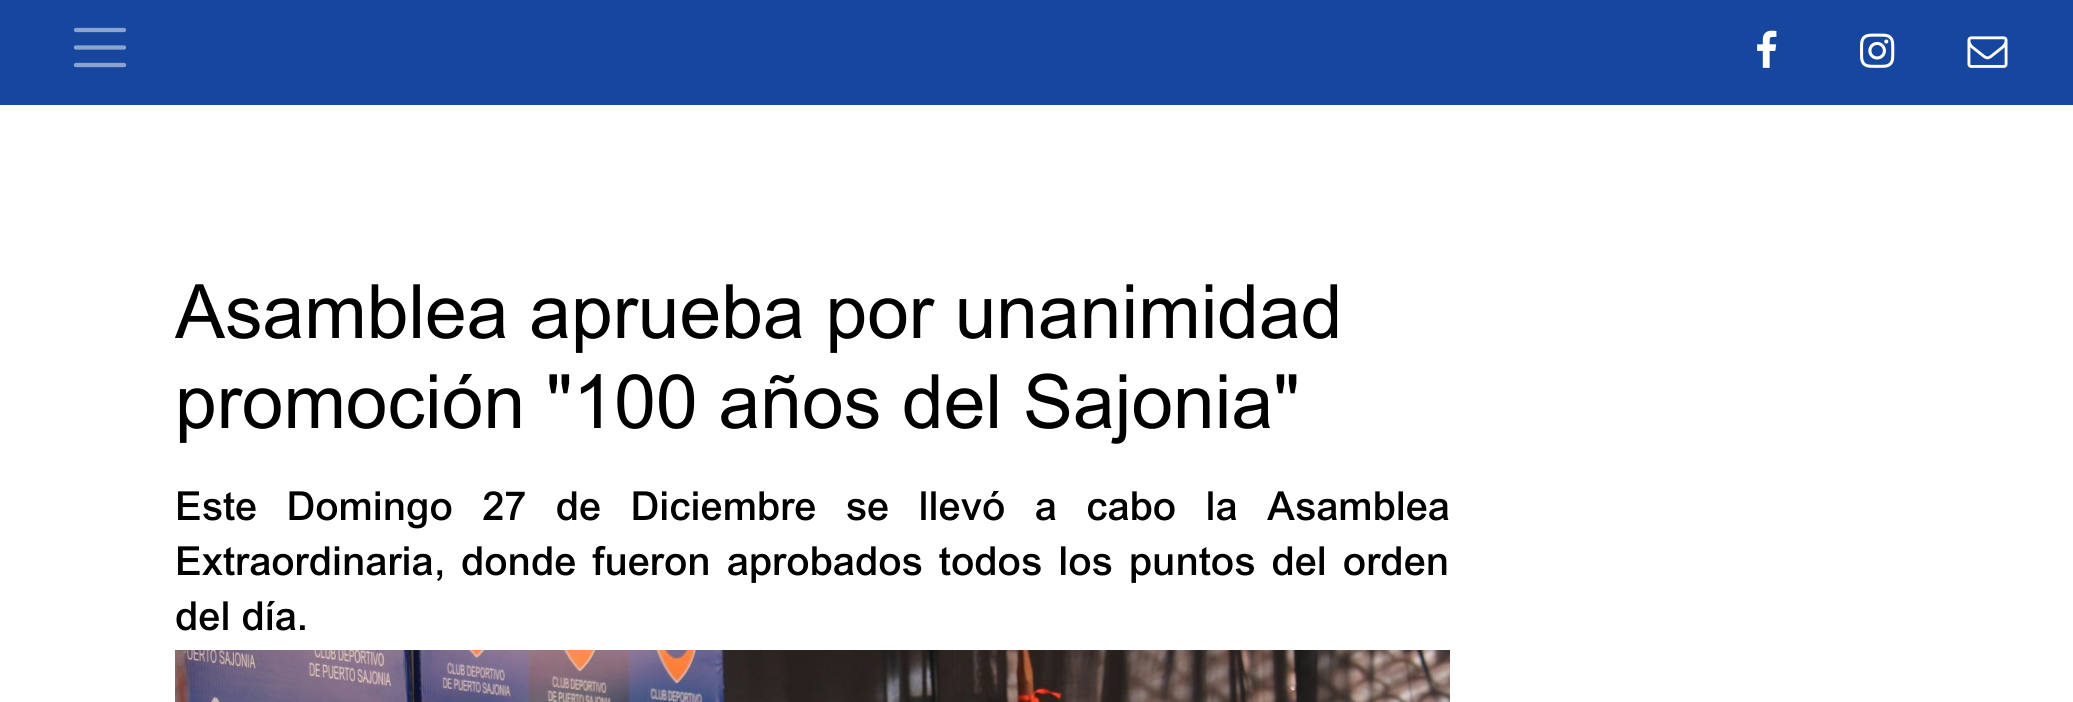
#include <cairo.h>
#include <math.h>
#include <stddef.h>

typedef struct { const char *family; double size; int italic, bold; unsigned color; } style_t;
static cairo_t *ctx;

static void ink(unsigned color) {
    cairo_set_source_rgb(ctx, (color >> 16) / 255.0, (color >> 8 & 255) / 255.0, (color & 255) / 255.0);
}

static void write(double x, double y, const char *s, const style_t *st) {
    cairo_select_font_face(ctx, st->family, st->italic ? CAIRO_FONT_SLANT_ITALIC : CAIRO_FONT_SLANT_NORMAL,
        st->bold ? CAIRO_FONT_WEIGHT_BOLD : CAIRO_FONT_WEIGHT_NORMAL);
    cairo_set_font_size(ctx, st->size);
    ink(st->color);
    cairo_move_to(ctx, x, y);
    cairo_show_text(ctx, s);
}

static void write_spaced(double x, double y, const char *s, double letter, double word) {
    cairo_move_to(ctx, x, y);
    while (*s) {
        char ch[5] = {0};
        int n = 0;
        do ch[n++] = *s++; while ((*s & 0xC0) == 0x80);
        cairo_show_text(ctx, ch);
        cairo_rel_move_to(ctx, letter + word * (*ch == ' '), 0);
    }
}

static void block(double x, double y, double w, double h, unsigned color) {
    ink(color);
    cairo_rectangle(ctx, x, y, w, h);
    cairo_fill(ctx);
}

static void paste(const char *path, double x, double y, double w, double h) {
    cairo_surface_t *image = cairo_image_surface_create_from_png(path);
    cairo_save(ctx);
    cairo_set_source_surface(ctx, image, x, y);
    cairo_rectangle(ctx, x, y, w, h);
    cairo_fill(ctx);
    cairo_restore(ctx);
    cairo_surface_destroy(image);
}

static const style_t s1 = {"Arial", 75, 0, 0, 0x000000};
static const style_t s2 = {"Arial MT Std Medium", 40, 0, 0, 0x000000};

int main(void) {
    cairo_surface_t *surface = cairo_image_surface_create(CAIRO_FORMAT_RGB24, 2073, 702);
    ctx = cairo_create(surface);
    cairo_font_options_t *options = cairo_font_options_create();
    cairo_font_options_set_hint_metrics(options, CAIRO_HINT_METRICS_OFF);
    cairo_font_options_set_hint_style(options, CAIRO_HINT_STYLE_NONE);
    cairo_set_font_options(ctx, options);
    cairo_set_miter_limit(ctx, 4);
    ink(0xffffff);
    cairo_paint(ctx);
    block(0, 0, 2073, 105, 0x17469e);
    cairo_new_path(ctx);
    cairo_move_to(ctx, 76, 30);
    cairo_line_to(ctx, 124, 30);
    cairo_move_to(ctx, 76, 47.5);
    cairo_line_to(ctx, 124, 47.5);
    cairo_move_to(ctx, 76, 65);
    cairo_line_to(ctx, 124, 65);
    ink(0x8ba3cf);
    cairo_set_line_width(ctx, 4.3);
    cairo_set_line_cap(ctx, CAIRO_LINE_CAP_ROUND);
    cairo_stroke(ctx);
    paste("pic1.png", 1757, 30, 20, 38);
    paste("pic2.png", 1860, 33, 35, 35);
    paste("pic3.png", 1967, 36, 41, 32);
    write(175, 338, "Asamblea aprueba por unanimidad", &s1);
    write(175, 428, "promoción \"100 años del Sajonia\"", &s1);
    cairo_select_font_face(ctx, "Arial MT Std Medium", CAIRO_FONT_SLANT_NORMAL, CAIRO_FONT_WEIGHT_NORMAL);
    cairo_set_font_size(ctx, 40);
    write_spaced(175, 520, "Este Domingo 27 de Diciembre se llevó a cabo la Asamblea", 0, 18.4);
    write_spaced(175, 575, "Extraordinaria, donde fueron aprobados todos los puntos del orden", 0, 5);
    write(175, 630, "del día.", &s2);
    paste("pic4.png", 175, 650, 1275, 52);
    cairo_surface_write_to_png(surface, "screenshot.png");
    cairo_font_options_destroy(options);
    cairo_destroy(ctx);
    cairo_surface_destroy(surface);
    return 0;
}
